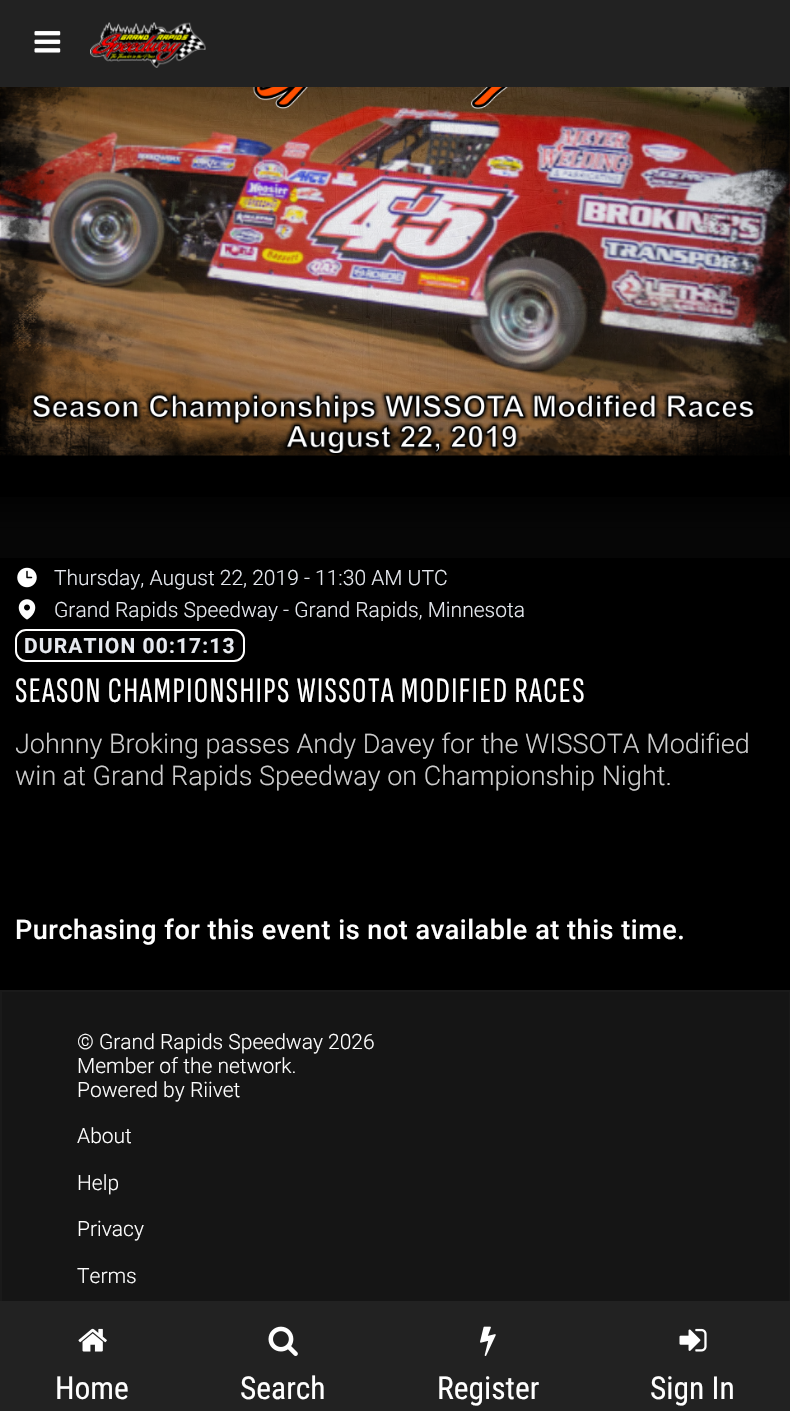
void draw(SkCanvas* c) {
SkPaint p;
p.setAntiAlias(true);
auto F=[&](const char* family, int weight, float size, bool italic = false){SkFontStyle style(weight, SkFontStyle::kNormal_Width,italic ? SkFontStyle::kItalic_Slant : SkFontStyle::kUpright_Slant);SkFont result(fontMgr->matchFamilyStyle(family, style), size);result.setSubpixel(true);return result;};
auto T=[&](const char* s, float x, float y, const SkFont& font){c->drawString(s, x, y, font, p);};
auto L=[&](const char* s, float x, float y, const SkFont& font, const SkPaint& ink, float letter, float word){std::vector<SkGlyphID> glyphs(font.countText(s, strlen(s), SkTextEncoding::kUTF8));std::vector<float> xs(glyphs.size());font.textToGlyphs(s, strlen(s), SkTextEncoding::kUTF8, glyphs);font.getXPos(glyphs, xs, x);float extra = 0;for (size_t i = 0; i < glyphs.size(); i++) {xs[i] += extra;extra += letter + word * (glyphs[i] == font.unicharToGlyph(' '));}c->drawTextBlob(SkTextBlob::MakeFromPosHGlyphs(glyphs, xs, y, font), 0, 0, ink);};
auto R=[&](float x, float y, float w, float h){c->drawRect(SkRect::MakeXYWH(x, y, w, h), p);};
auto I=[&](const char* path, float x, float y, float w, float h){auto image = SkImages::DeferredFromEncodedData(SkData::MakeFromFileName(path));c->drawImageRect(image, SkRect::MakeXYWH(x, y, w, h), SkSamplingOptions());};
c->clear(0xff000000);
p.setColor(0xff222222);
R(0,0,790,87);
I("1.png",34,31,27,22);
I("2.png",90,22,116,46);
I("3.png",0,87,790,369);
{
const SkColor colors[] = {0xff060606,0x2b0a0a0a,0x000a0a0a,0x000a0a0a,0x2b0a0a0a,0xff060606};
const float stops[] = {.04,.1,.14,.87,.9,.96};
const SkPoint ends[] = {{395,-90}, {395,558}};
p.setShader(SkGradientShader::MakeLinear(ends, colors, stops, 6, SkTileMode::kClamp));
p.setAlpha(255);
}
R(0,497,790,61);
I("4.png",17,567,20,21);
auto f1 = F("Roboto",300,21);
p.setShader(nullptr);
p.setColor(0xffe6e9ef);
T("Thursday, August 22, 2019 - 11:30 AM UTC",54,585,f1);
I("5.png",18,599,18,21);
c->save();
c->clipRect(SkRect::MakeXYWH(54,597,471,24));
T("Grand Rapids Speedway - Grand Rapids, Minnesota",54,617,f1);
c->restore();
p.setStroke(true);
p.setStrokeWidth(2);
p.setColor(0xffffffff);
c->drawRoundRect(SkRect::MakeXYWH(16,630,228,31),10,10,p);
auto f2 = F("Roboto",700,21);
p.setStroke(false);
p.setColor(0xffe6e9ef);
L("DURATION 00:17:13",24,653,f2,p,1.1,0);
auto f3 = F("Sofia Sans Extra Condensed",400,36);
p.setColor(0xffffffff);
L("SEASON CHAMPIONSHIPS WISSOTA MODIFIED RACES",15,702,f3,p,1.45,0);
auto f4 = F("Roboto",300,27);
p.setColor(0xffcccccc);
T("Johnny Broking passes Andy Davey for the WISSOTA Modified",15,753,f4);
T("win at Grand Rapids Speedway on Championship Night.",15,785,f4);
auto f5 = F("Roboto",500,27);
p.setColor(0xffffffff);
L("Purchasing for this event is not available at this time.",15,939,f5,p,.55,0);
p.setColor(0xff151515);
R(2,992,787,309);
p.setStroke(true);
p.setColor(0xff1a1a1a);
c->drawRect(SkRect::MakeXYWH(1,991,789,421),p);
p.setStroke(false);
p.setColor(0xffffffff);
T("© Grand Rapids Speedway 2026",77,1049,f1);
T("Member of the network.",77,1073,f1);
T("Powered by Riivet",77,1097,f1);
T("About",77,1143,f1);
T("Help",77,1190,f1);
T("Privacy",77,1236,f1);
T("Terms",77,1283,f1);
p.setColor(0xff222222);
R(0,1301,790,110);
I("6.png",78,1328,29,24);
auto f6 = F("Roboto Condensed",400,31.5);
p.setColor(0xffffffff);
T("Home",55,1399,f6);
I("7.png",268,1326,30,30);
T("Search",240,1399,f6);
I("8.png",480,1326,16,30);
T("Register",437,1399,f6);
I("9.png",679,1328,28,24);
T("Sign In",650,1399,f6);
}
